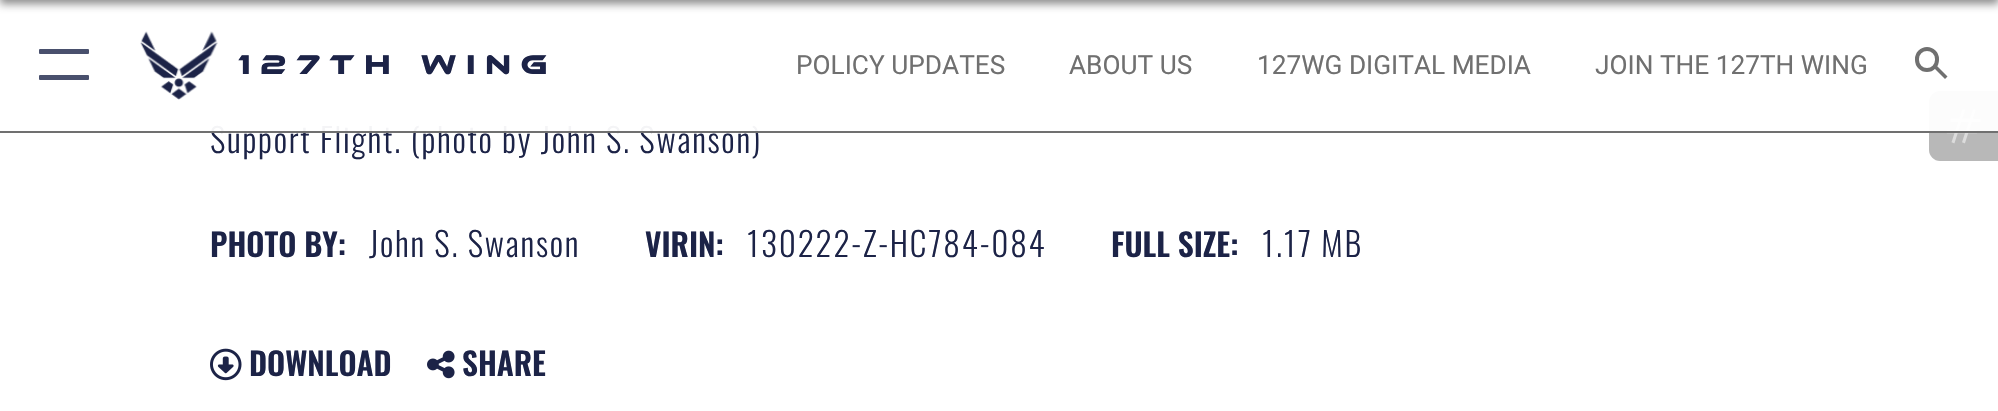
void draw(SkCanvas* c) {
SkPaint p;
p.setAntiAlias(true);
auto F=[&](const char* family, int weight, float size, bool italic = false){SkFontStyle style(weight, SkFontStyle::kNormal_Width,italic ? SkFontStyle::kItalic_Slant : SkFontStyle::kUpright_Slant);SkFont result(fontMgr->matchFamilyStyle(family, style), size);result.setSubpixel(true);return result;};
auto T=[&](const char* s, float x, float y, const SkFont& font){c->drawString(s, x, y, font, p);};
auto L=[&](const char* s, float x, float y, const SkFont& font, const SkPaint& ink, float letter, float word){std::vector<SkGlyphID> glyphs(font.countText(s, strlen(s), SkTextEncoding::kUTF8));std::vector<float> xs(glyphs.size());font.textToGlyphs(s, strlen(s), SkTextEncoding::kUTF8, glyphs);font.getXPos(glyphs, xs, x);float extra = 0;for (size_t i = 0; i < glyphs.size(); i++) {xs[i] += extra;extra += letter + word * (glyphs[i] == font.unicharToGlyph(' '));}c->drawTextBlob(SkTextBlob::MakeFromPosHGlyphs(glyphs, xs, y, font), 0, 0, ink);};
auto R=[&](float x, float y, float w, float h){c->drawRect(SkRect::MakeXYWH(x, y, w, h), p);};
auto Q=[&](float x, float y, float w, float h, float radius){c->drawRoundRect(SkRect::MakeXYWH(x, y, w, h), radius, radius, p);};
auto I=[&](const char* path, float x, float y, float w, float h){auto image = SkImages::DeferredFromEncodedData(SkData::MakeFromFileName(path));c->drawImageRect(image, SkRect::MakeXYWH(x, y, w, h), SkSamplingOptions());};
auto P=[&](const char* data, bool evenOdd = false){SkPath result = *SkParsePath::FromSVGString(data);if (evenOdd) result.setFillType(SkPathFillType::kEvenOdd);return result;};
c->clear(0xffffffff);
p.setColor(0x73000000);
p.setMaskFilter(SkMaskFilter::MakeBlur(kNormal_SkBlurStyle, 4.5));
c->drawRect(SkRect::MakeXYWH(0,-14,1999,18),p);
p.setMaskFilter(nullptr);
auto f1 = F("Oswald",300,33.25);
p.setColor(0xff1c2347);
L("Support Flight. (photo by John S. Swanson)",210,153,f1,p,1.75,0);
p.setColor(0xffb8b8b8);
c->drawPath(P("M1940 91h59v70h-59c-6 0-11-5-11-11v-48c0-6 5-11 11-11z"),p);
I("4.png",1946,109,35,35);
p.setColor(0xf2ffffff);
R(211,91,1787,40);
p.setColor(0xff707070);
R(0,131,1998,2);
p.setColor(0xff49506d);
Q(39,49,50,5,1);
Q(39,75,50,5,1);
I("1.png",140,31,78,69);
auto f2 = F("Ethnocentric",400,28);
p.setColor(0xff1c2347);
L("127th Wing",238,74,f2,p,9.75,0);
auto f3 = F("Roboto",400,26.25);
p.setColor(0xff707070);
T("POLICY UPDATES",796,74,f3);
T("ABOUT US",1069,74,f3);
T("127WG DIGITAL MEDIA",1257,74,f3);
T("JOIN THE 127TH WING",1595,74,f3);
p.setStroke(true);
p.setStrokeWidth(4);
c->drawRoundRect(SkRect::MakeXYWH(1917,49,20,21),10,10,p);
p.setStroke(false);
c->drawPath(P("M1935 64l12.5 12.5l-2.5 2.5l-12.5-12.5z"),p);
auto f4 = F("Oswald",600,31.5);
p.setColor(0xff1c2347);
T("PHOTO BY:",210,257,f4);
L("John S. Swanson",369,257,f1,p,1.75,0);
T("VIRIN:",645,257,f4);
L("130222-Z-HC784-084",747,257,f1,p,1.75,0);
T("FULL SIZE:",1111,257,f4);
L("1.17 MB",1262,257,f1,p,1.75,0);
I("2.png",210,348,32,33);
T("DOWNLOAD",249,376,f4);
I("3.png",427,350,28,29);
T("SHARE",462,376,f4);
}
